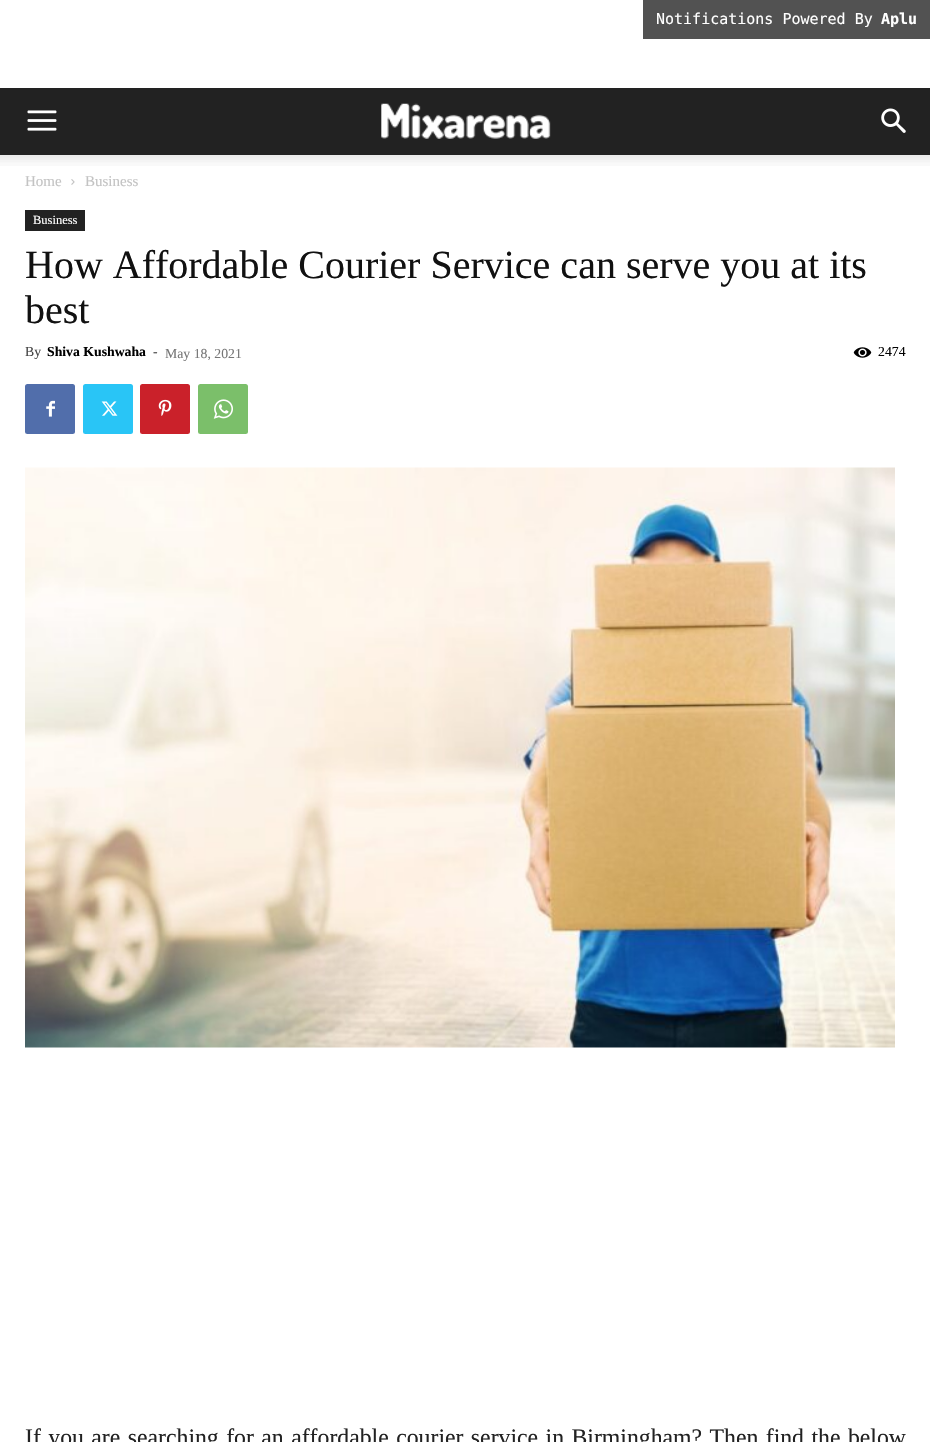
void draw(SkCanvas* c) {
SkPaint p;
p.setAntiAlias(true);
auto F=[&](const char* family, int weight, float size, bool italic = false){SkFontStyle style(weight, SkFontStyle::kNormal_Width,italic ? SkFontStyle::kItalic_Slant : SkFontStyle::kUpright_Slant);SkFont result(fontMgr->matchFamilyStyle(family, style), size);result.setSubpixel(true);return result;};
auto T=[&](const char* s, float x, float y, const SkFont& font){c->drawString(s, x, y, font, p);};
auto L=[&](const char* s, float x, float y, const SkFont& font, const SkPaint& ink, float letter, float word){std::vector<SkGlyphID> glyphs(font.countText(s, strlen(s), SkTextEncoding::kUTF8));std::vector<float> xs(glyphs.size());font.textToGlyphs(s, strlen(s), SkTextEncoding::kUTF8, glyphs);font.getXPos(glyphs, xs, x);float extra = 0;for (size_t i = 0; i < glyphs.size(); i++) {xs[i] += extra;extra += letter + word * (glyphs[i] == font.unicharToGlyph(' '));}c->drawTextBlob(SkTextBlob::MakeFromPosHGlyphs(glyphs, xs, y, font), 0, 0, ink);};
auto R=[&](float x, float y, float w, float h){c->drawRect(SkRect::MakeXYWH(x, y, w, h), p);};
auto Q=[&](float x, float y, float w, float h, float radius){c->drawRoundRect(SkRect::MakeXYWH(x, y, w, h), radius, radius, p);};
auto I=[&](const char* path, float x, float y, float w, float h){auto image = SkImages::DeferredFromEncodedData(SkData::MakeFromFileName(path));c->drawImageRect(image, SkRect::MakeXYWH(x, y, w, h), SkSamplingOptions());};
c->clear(0xffffffff);
p.setColor(0xff525252);
R(643,0,287,39);
auto f1 = F("DejaVu Sans Mono",400,15);
p.setColor(0xffffffff);
T("Notifications Powered By",656,24,f1);
auto f2 = F("DejaVu Sans Mono",700,15);
T("Aplu",881,24,f2);
p.setColor(0xff222222);
R(0,88,930,67);
I("1.png",27,110,30,21);
I("2.png",381,103,170,36);
I("3.png",881,108,25,25);
I("4.png",0,155,930,11);
auto f3 = F("Liberation Serif",400,15);
p.setColor(0xffc3c3c3);
T("Home",25,186,f3);
I("5.png",71,179,4,6);
T("Business",85,186,f3);
p.setColor(0xff222222);
R(25,210,60,21);
auto f4 = F("Liberation Serif",400,12.5);
p.setColor(0xffffffff);
T("Business",33,224,f4);
auto f5 = F("Liberation Serif",400,40);
p.setColor(0xff111111);
T("How Affordable Courier Service can serve you at its",25,278,f5);
T("best",25,323,f5);
auto f6 = F("Liberation Serif",400,13.75);
p.setColor(0xff444444);
T("By",25,356,f6);
auto f7 = F("Liberation Serif",700,13.75);
p.setColor(0xff000000);
T("Shiva Kushwaha",47,356,f7);
p.setColor(0xff444444);
T("-",153,356,f6);
p.setColor(0xff767676);
T("May 18, 2021",165,358,f6);
I("6.png",853,347,19,11);
p.setColor(0xff000000);
T("2474",878,356,f6);
p.setColor(0xff516eab);
Q(25,384,50,50,2.5);
I("7.png",46,400,9,17);
p.setColor(0xff29c5f6);
Q(83,384,50,50,2.5);
I("8.png",101,401,17,15);
p.setColor(0xffca212a);
Q(140,384,50,50,2.5);
I("9.png",158,399,14,17);
p.setColor(0xff7bbf6a);
Q(198,384,50,50,2.5);
I("10.png",213,399,20,20);
I("11.png",25,467,870,581);
auto f8 = F("Liberation Serif",400,23.75);
p.setColor(0xff222222);
L("If you are searching for an affordable courier service in Birmingham? Then find the below",25,1445,f8,p,0,1.5);
}
